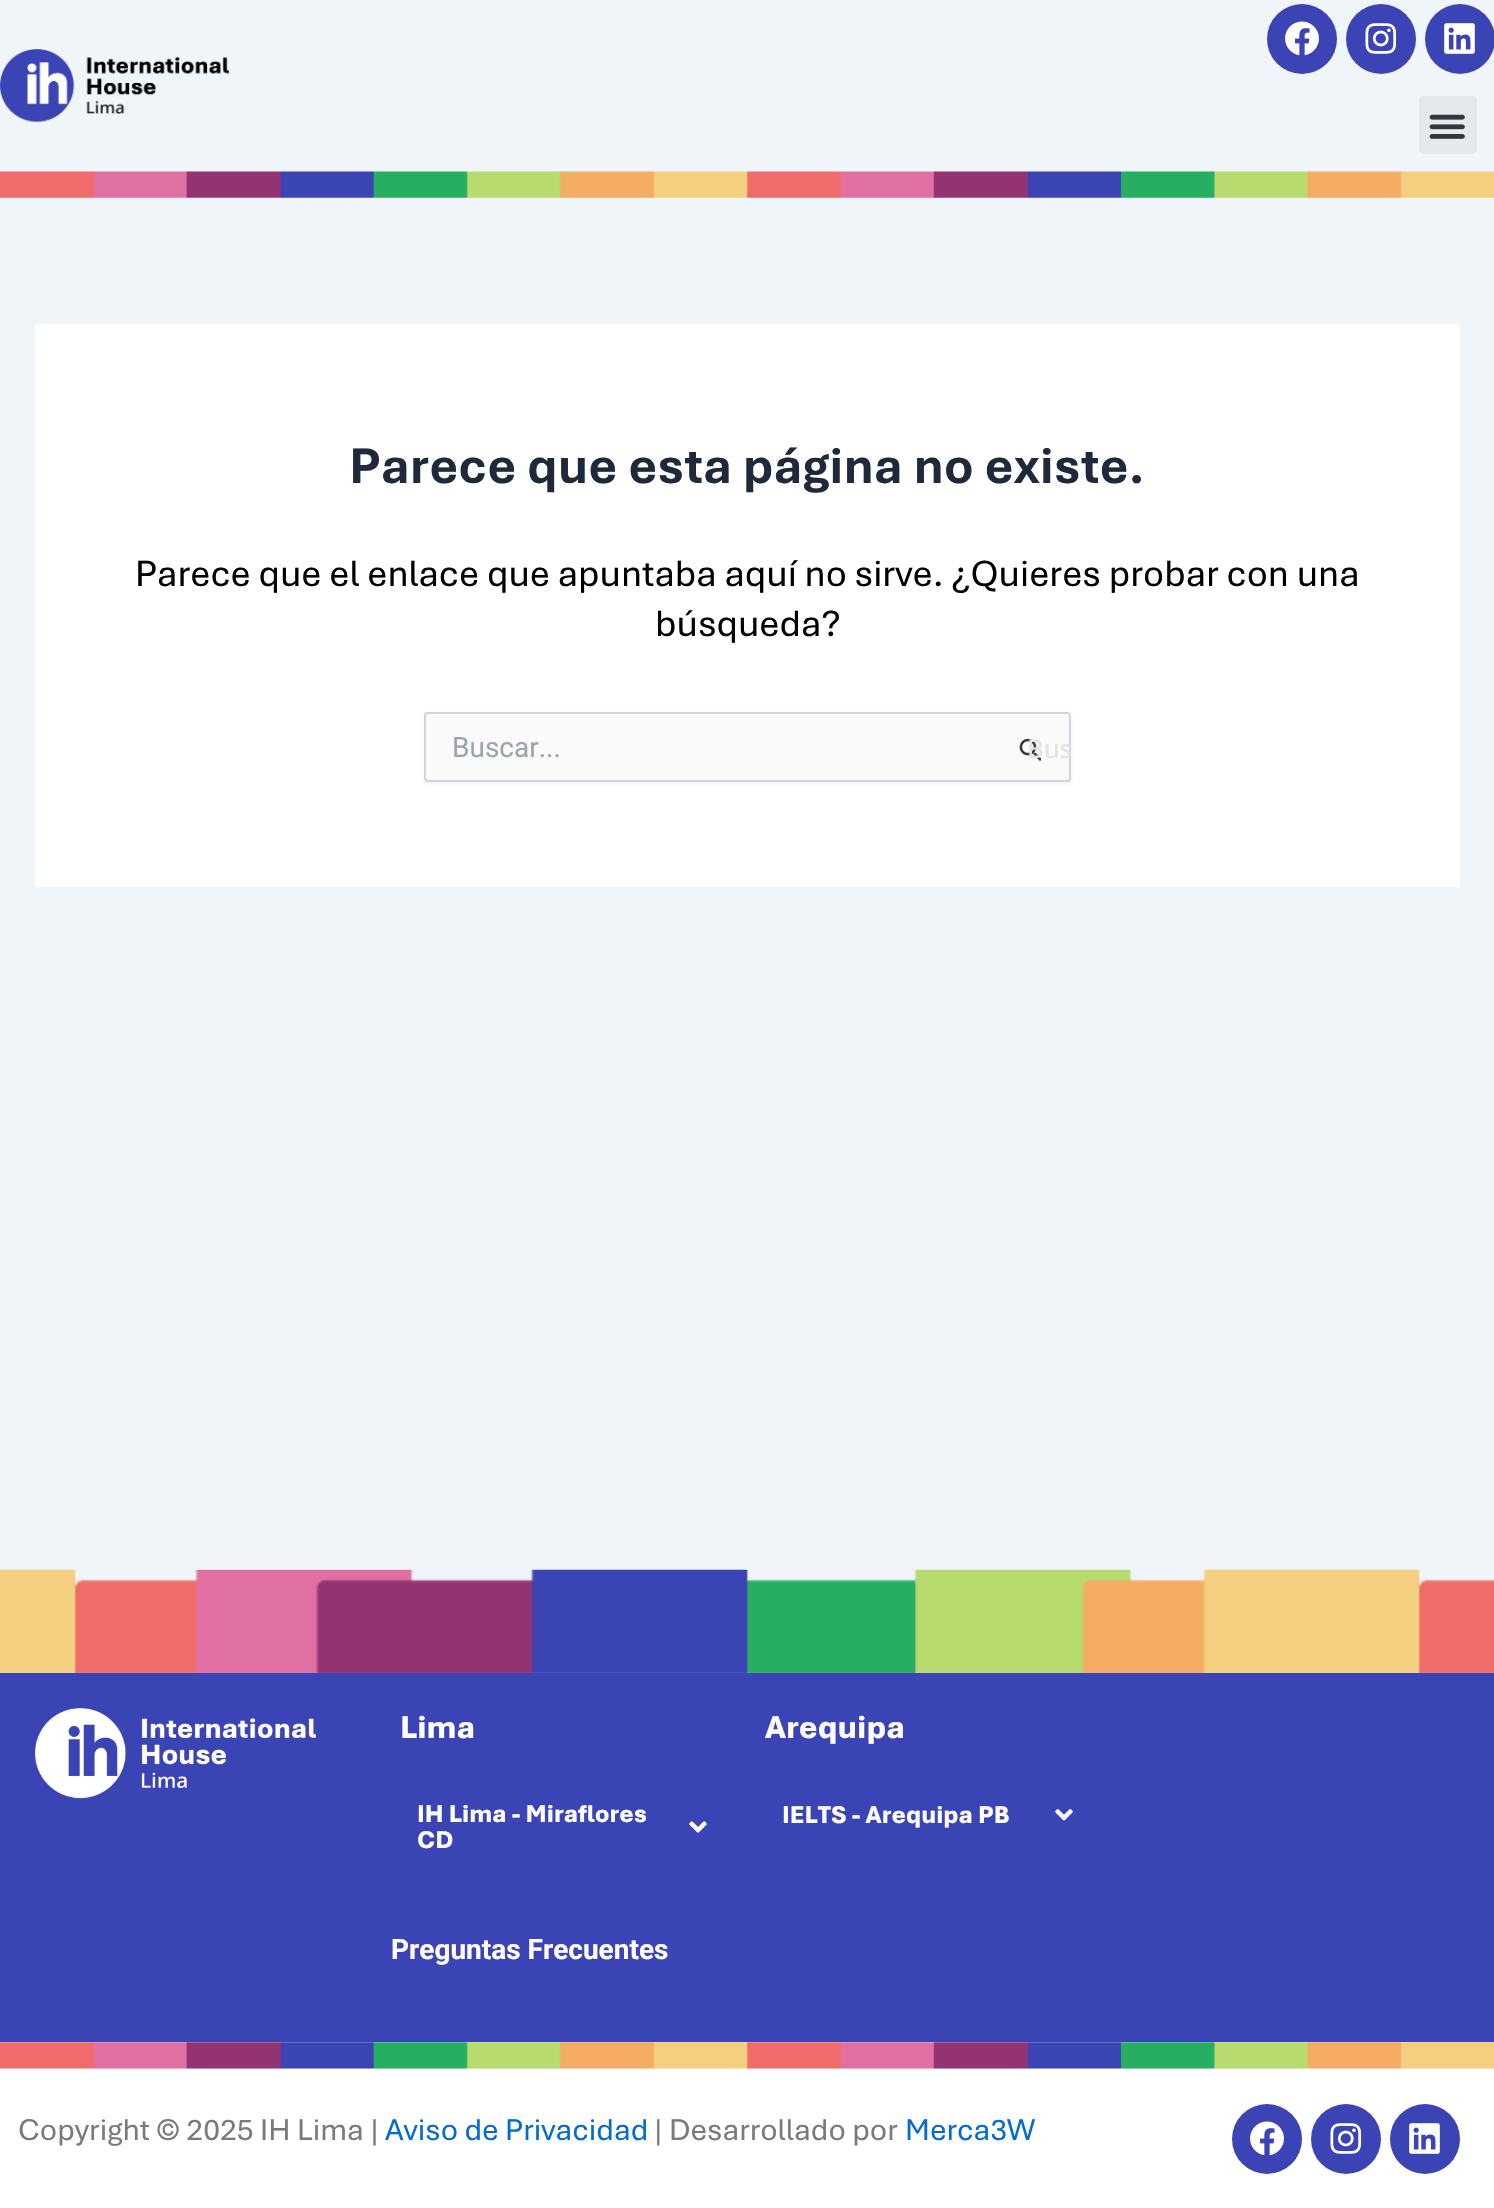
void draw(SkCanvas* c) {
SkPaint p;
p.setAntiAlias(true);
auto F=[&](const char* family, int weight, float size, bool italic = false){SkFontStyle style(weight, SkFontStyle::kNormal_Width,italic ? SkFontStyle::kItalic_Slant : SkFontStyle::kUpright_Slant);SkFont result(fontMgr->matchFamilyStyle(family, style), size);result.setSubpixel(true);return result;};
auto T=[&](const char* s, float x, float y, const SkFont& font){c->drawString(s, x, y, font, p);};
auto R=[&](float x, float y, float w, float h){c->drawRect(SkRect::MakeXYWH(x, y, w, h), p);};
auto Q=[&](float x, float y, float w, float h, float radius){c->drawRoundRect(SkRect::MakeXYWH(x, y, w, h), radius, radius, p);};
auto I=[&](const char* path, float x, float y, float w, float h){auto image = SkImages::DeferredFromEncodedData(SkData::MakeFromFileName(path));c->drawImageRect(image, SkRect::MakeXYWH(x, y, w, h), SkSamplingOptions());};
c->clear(0xfff0f5fa);
I("1.png",0,49,230,74);
p.setColor(0xff3b43b5);
c->drawCircle(1302,39,35,p);
I("2.png",1285,21,34,35);
c->drawCircle(1381,39,35,p);
I("3.png",1365,23,32,31);
p.setColor(0xff3b44b5);
c->drawCircle(1460,39,35,p);
I("4.png",1444,23,31,31);
p.setColor(0xffe4e9ee);
Q(1419,96,58,58,5);
I("5.png",1429,114,36,25);
I("6.png",0,171,1494,27);
p.setColor(0xffffffff);
R(35,324,1425,563);
auto f1 = F("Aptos",700,52.5);
p.setColor(0xff1e293b);
T("Parece que esta página no existe.",349,483,f1);
auto f2 = F("Aptos",400,38.3);
p.setColor(0xff000000);
T("Parece que el enlace que apuntaba aquí no sirve. ¿Quieres probar con una",135,586,f2);
T("búsqueda?",655,636,f2);
p.setColor(0x0d000000);
p.setMaskFilter(SkMaskFilter::MakeBlur(kNormal_SkBlurStyle, 2));
c->drawRoundRect(SkRect::MakeXYWH(424,714,647,70),4,4,p);
p.setMaskFilter(nullptr);
p.setColor(0xfffafafa);
c->drawRoundRect(SkRect::MakeXYWH(425,713,645,68),3,3,p);
p.setStroke(true);
p.setStrokeWidth(2);
p.setColor(0xffd1d5db);
c->drawRoundRect(SkRect::MakeXYWH(425,713,645,68),3,3,p);
auto f3 = F("Roboto",400,28);
p.setStroke(false);
p.setColor(0xff9ca3af);
T("Buscar...",452,757,f3);
I("7.png",1019,738,22,23);
auto f4 = F("Open Sans",500,25.5);
p.setColor(0xffe3e3e3);
T("Bus",1027,758,f4);
I("8.png",0,1569,1494,104);
p.setColor(0xff3b44b5);
R(0,1673,1494,369);
I("9.png",35,1708,281,91);
auto f5 = F("Aptos",800,33.25);
p.setColor(0xffffffff);
T("Lima",400,1738,f5);
auto f6 = F("Aptos",800,25.5);
T("IH Lima - Miraflores",417,1822,f6);
T("CD",417,1848,f6);
I("10.png",689,1821,18,12);
T("Arequipa",765,1738,f5);
T("IELTS - Arequipa PB",782,1823,f6);
I("11.png",1055,1809,18,12);
auto f7 = F("Roboto",700,28);
T("Preguntas Frecuentes",391,1959,f7);
I("12.png",0,2042,1494,27);
R(0,2069,1494,139);
auto f8 = F("Aptos",400,31.5);
p.setColor(0xff7a7a7a);
T("Copyright © 2025 IH Lima |",18,2140,f8);
p.setColor(0xff046bd2);
T("Aviso de Privacidad",385,2140,f8);
p.setColor(0xff7a7a7a);
T("| Desarrollado por",654,2140,f8);
p.setColor(0xff046bd2);
T("Merca3W",905,2140,f8);
p.setColor(0xff3b43b5);
c->drawCircle(1267,2139,35,p);
I("2.png",1250,2121,34,35);
c->drawCircle(1346,2139,35,p);
I("3.png",1330,2123,32,31);
p.setColor(0xff3b44b5);
c->drawCircle(1425,2139,35,p);
I("4.png",1409,2123,31,31);
}
